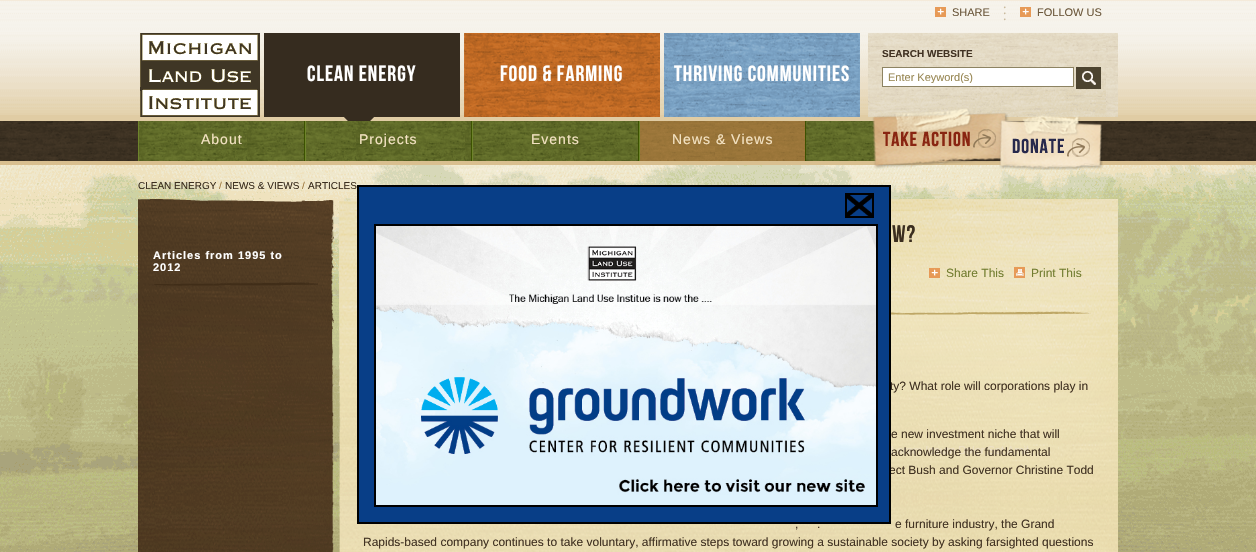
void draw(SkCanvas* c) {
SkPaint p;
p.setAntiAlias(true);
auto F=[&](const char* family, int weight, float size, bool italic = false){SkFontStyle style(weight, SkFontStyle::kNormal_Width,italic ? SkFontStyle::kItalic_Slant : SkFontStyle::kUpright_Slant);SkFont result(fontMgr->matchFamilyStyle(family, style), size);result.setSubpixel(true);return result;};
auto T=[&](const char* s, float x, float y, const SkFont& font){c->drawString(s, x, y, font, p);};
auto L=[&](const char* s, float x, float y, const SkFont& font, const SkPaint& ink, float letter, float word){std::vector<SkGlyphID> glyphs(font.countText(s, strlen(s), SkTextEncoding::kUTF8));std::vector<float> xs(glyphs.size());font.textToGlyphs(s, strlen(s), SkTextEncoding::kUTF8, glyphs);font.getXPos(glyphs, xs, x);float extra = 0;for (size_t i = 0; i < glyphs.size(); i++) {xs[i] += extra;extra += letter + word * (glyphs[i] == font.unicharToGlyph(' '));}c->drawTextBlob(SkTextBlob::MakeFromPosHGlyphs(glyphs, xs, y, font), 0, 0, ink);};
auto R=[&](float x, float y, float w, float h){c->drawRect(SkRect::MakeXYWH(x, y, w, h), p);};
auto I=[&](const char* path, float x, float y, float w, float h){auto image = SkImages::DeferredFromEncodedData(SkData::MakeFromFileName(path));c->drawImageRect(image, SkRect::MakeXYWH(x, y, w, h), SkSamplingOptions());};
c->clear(0xffffffff);
I("1.png",0,165,1256,387);
p.setColor(0xffe0cca4);
R(0,115,1256,6);
I("2.png",0,0,1256,115);
I("3.png",1003,6,3,15);
I("4.png",935,7,11,10);
auto f1 = F("Liberation Sans",400,11);
p.setColor(0xff6c583c);
T("SHARE",952,16,f1);
I("4.png",1020,7,11,10);
T("FOLLOW US",1037,16,f1);
I("5.png",140,33,120,84);
I("6.png",264,33,196,88);
auto f2 = F("Bebas Neue",400,22);
p.setColor(0xffffffff);
L("CLEAN ENERGY",307,81,f2,p,1,0);
I("7.png",464,33,196,84);
L("FOOD & FARMING",500,81,f2,p,1,0);
I("8.png",664,33,196,84);
L("THRIVING COMMUNITIES",674,81,f2,p,1,0);
I("9.png",868,33,250,84);
auto f3 = F("Liberation Sans",700,10);
p.setColor(0xff413222);
T("SEARCH WEBSITE",882,57,f3);
p.setColor(0xffffffff);
c->drawRect(SkRect::MakeXYWH(882.5,67.5,191,19),p);
p.setStroke(true);
p.setStrokeWidth(1);
p.setColor(0xff8d8362);
c->drawRect(SkRect::MakeXYWH(882.5,67.5,191,19),p);
c->save();
c->clipRect(SkRect::MakeXYWH(888,71,180,12));
p.setStroke(false);
p.setColor(0xff988753);
T("Enter Keyword(s)",888,81,f1);
c->restore();
I("10.png",1076,67,25,22);
I("11.png",0,121,1256,40);
p.setColor(0xffd9bf8f);
R(0,161,1256,4);
I("12.png",139,121,799,40);
p.setColor(0xff3c5200);
R(304,121,1,40);
p.setColor(0xff6e842c);
R(138,121,1,40);
auto f4 = F("Liberation Sans",400,14);
p.setColor(0xfff4e3c3);
L("About",201,144,f4,p,1,0);
p.setColor(0xff3c5200);
R(471,121,1,40);
p.setColor(0xff6e842c);
R(305,121,1,40);
p.setColor(0xfff4e3c3);
L("Projects",359,144,f4,p,1,0);
p.setColor(0xff3c5200);
R(638,121,1,40);
p.setColor(0xff6e842c);
R(472,121,1,40);
p.setColor(0xfff4e3c3);
L("Events",531,144,f4,p,1,0);
p.setColor(0xff3c5200);
R(805,121,1,40);
p.setColor(0xff6e842c);
R(639,121,1,40);
I("13.png",640,121,165,40);
p.setColor(0xfff4e3c3);
L("News & Views",672,144,f4,p,1,0);
I("14.png",872,108,137,61);
I("15.png",999,115,104,55);
auto f5 = F("Liberation Sans",400,10);
p.setColor(0xff3b2e1f);
T("CLEAN ENERGY",138,189,f5);
p.setColor(0xff9d773b);
T("/",219,189,f5);
p.setColor(0xff3b2e1f);
T("NEWS & VIEWS",225,189,f5);
p.setColor(0xff9d773b);
T("/",302,189,f5);
p.setColor(0xff3b2e1f);
T("ARTICLES",308,189,f5);
I("16.png",138,199,980,12);
I("17.png",138,211,980,341);
I("18.png",154,282,164,4);
auto f6 = F("Liberation Sans",700,11);
p.setColor(0xffffffff);
L("Articles from 1995 to",153,259,f6,p,1,0);
L("2012",153,271,f6,p,1,0);
auto f7 = F("Bebas Neue",400,24);
p.setColor(0xff3b2e1f);
L("w?",892,242,f7,p,1,0);
I("4.png",929,268,11,10);
auto f8 = F("Liberation Sans",400,12);
p.setColor(0xff727d30);
T("Share This",946,277,f8);
I("19.png",1014,267,11,11);
T("Print This",1031,277,f8);
I("20.png",891,311,200,4);
p.setColor(0xff413222);
T("ty? What role will corporations play in",890,390,f8);
T("e new investment niche that will",891,438,f8);
T("acknowledge the fundamental",891,456,f8);
T("ect Bush and Governor Christine Todd",889,474,f8);
T(",",795,528,f8);
T(".",817,528,f8);
T("e furniture industry, the Grand",895,528,f8);
T("Rapids-based company continues to take voluntary, affirmative steps toward growing a sustainable society by asking farsighted questions",363,546,f8);
p.setColor(0xff083e87);
c->drawRect(SkRect::MakeXYWH(358,186,532,337),p);
p.setStroke(true);
p.setStrokeWidth(2);
p.setColor(0xff000000);
c->drawRect(SkRect::MakeXYWH(358,186,532,337),p);
c->drawRect(SkRect::MakeXYWH(846,194,27,23),p);
I("21.png",847,195,25,21);
c->drawRect(SkRect::MakeXYWH(375,225,502,281),p);
I("22.png",376,226,500,279);
}
